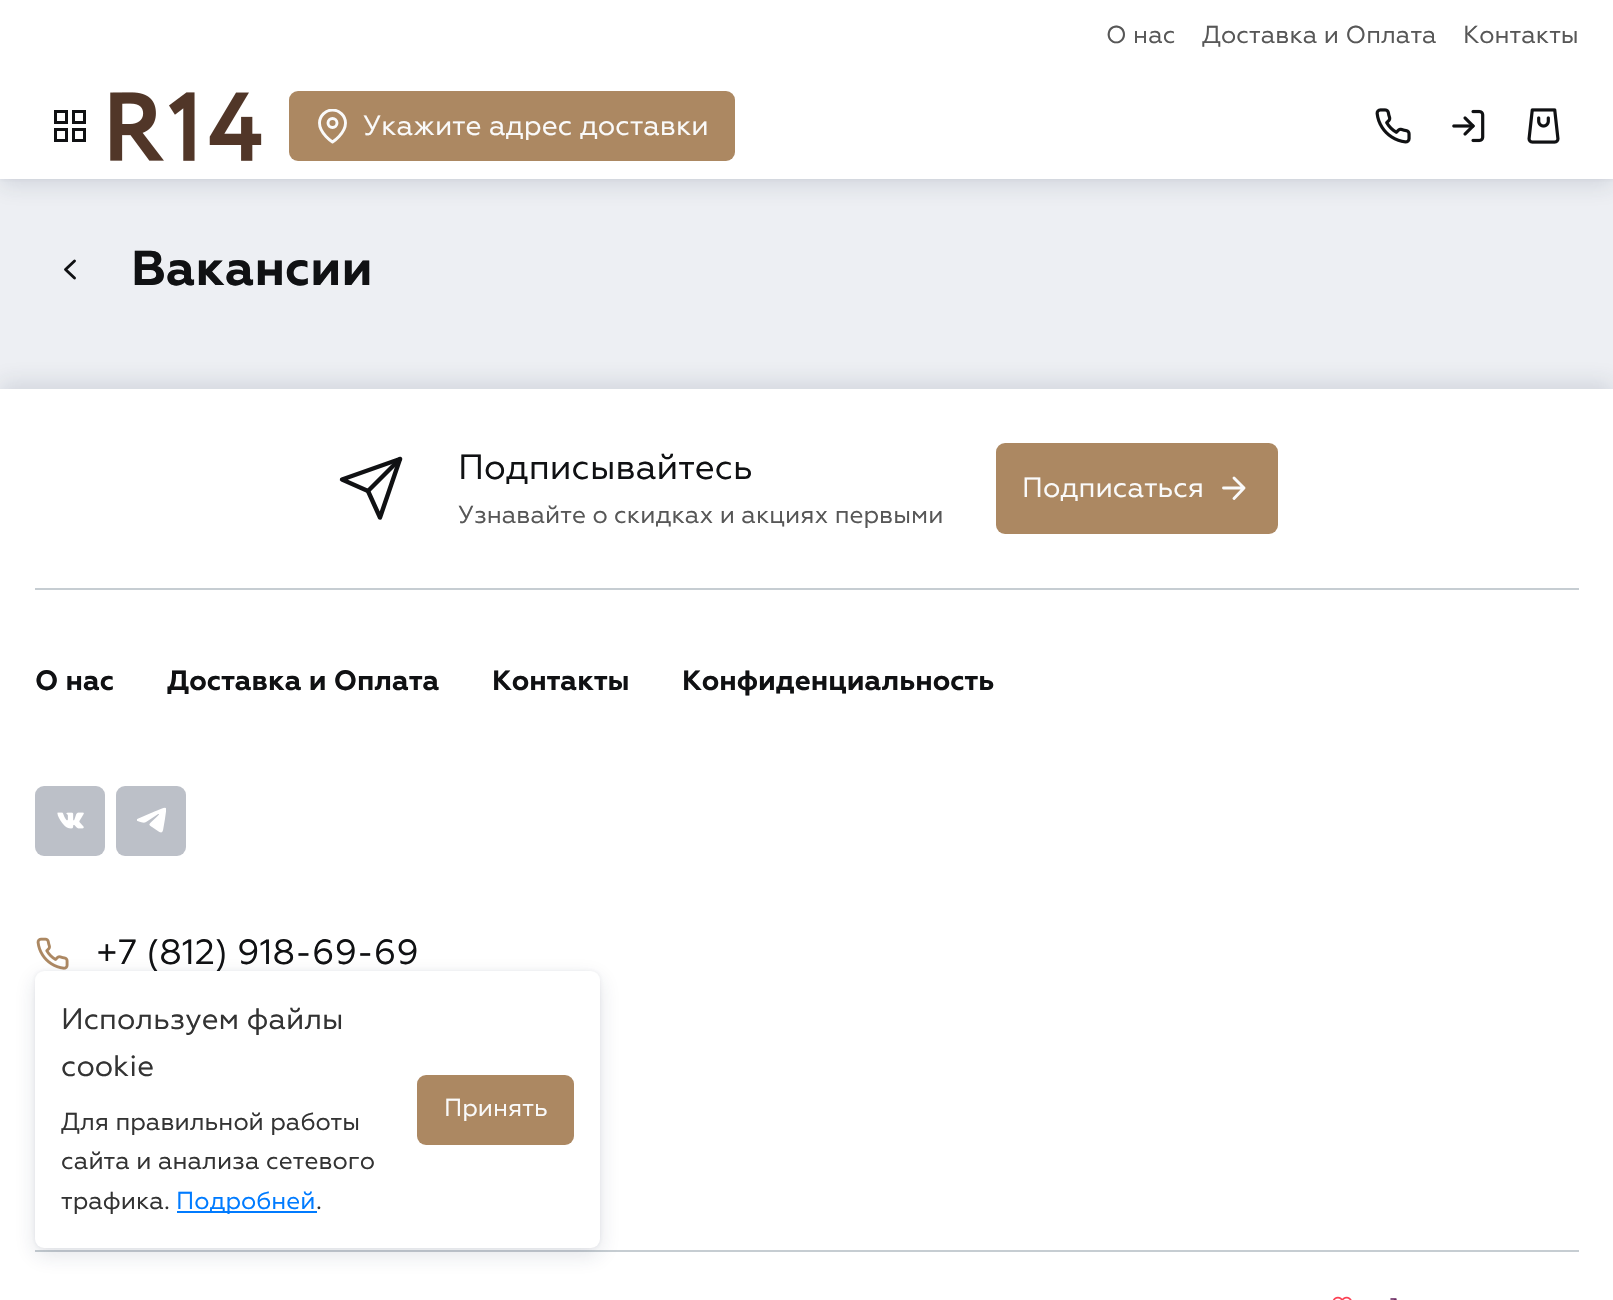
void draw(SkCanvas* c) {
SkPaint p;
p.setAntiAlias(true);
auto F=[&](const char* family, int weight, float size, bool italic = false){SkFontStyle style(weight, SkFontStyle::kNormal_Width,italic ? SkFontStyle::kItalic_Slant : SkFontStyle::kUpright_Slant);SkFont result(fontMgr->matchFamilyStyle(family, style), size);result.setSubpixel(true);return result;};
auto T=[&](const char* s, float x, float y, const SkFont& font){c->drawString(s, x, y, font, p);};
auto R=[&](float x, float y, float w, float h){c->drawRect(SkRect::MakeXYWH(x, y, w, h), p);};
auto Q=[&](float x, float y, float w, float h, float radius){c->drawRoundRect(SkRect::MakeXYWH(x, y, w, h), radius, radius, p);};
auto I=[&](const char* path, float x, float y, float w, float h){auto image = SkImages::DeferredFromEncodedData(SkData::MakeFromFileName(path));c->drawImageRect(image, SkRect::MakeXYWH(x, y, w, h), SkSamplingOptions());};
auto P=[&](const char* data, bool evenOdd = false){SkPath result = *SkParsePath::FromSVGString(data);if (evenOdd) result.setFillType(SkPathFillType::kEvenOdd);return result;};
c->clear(0xffedeff3);
p.setColor(0x21202c4b);
p.setMaskFilter(SkMaskFilter::MakeBlur(kNormal_SkBlurStyle, 10.5));
c->drawRect(SkRect::MakeXYWH(0,7,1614,179),p);
p.setMaskFilter(nullptr);
p.setColor(0x14202c4b);
p.setMaskFilter(SkMaskFilter::MakeBlur(kNormal_SkBlurStyle, 2));
c->drawRect(SkRect::MakeXYWH(0,0,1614,179),p);
p.setMaskFilter(nullptr);
p.setColor(0xffffffff);
R(0,0,1613,179);
auto f1 = F("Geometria",400,24.5);
p.setColor(0xff575757);
T("О нас",1106,43,f1);
T("Доставка и Оплата",1202,43,f1);
T("Контакты",1463,43,f1);
p.setStroke(true);
p.setStrokeWidth(3);
p.setColor(0xff101113);
c->drawRect(SkRect::MakeXYWH(55.5,111.5,11,11),p);
c->drawRect(SkRect::MakeXYWH(73.5,111.5,11,11),p);
c->drawRect(SkRect::MakeXYWH(73.5,129.5,11,11),p);
c->drawRect(SkRect::MakeXYWH(55.5,129.5,11,11),p);
I("1.png",110,92,152,69);
p.setStroke(false);
p.setColor(0xffac8862);
Q(289,91,446,70,9);
c->save();
c->clipRect(SkRect::MakeXYWH(315,109,35,35));
p.setStroke(true);
p.setStrokeWidth(2.9);
p.setStrokeCap(SkPaint::kRound_Cap);
p.setStrokeJoin(SkPaint::kRound_Join);
p.setColor(0xfffafafa);
c->drawPath(P("M345.5 123c0 10.5-13 19-13 19c0 0-13-8.5-13-19c0-7 6-13 13-13c7 0 13 6 13 13z"),p);
c->restore();
p.setStrokeCap(SkPaint::kButt_Cap);
p.setStrokeJoin(SkPaint::kMiter_Join);
c->drawCircle(332.5,123,4.5,p);
c->save();
c->clipRect(SkRect::MakeXYWH(362,112,347,28));
auto f2 = F("Geometria",400,28);
p.setStroke(false);
T("Укажите адрес доставки",363,135,f2);
c->restore();
I("2.png",1375,108,36,36);
I("3.png",1452,109,33,34);
I("4.png",1527,108,33,36);
p.setStroke(true);
p.setStrokeCap(SkPaint::kRound_Cap);
p.setStrokeJoin(SkPaint::kRound_Join);
p.setColor(0xff101113);
c->drawPath(P("M74.5 278l-9-8.5l9-8.5"),p);
auto f3 = F("Geometria",700,49);
p.setStroke(false);
T("Вакансии",131,285,f3);
p.setColor(0x21202c4b);
p.setMaskFilter(SkMaskFilter::MakeBlur(kNormal_SkBlurStyle, 10.5));
c->drawRect(SkRect::MakeXYWH(0,382,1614,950),p);
p.setMaskFilter(nullptr);
p.setColor(0xffffffff);
R(0,389,1613,911);
p.setColor(0xffc6cdd2);
R(35,588,1544,2);
p.setStroke(true);
p.setStrokeWidth(4.4);
p.setColor(0xff101113);
c->drawPath(P("M400 459l-32 32"),p);
c->drawPath(P("M400 459l-20 58.5l-12-26.5l-26-11.5z"),p);
auto f4 = F("Geometria",400,35);
p.setStroke(false);
T("Подписывайтесь",458,479,f4);
p.setColor(0xff575757);
T("Узнавайте о скидках и акциях первыми",458,523,f1);
p.setColor(0xffac8862);
Q(996,443,282,91,9);
p.setColor(0xfffafafa);
T("Подписаться",1022,497,f2);
p.setStroke(true);
p.setStrokeWidth(2.9);
c->drawPath(P("M1223.5 488h20.5m-10-10l10 10l-10 10.5"),p);
p.setStroke(false);
p.setColor(0xffc6cdd2);
R(35,1250,1544,2);
auto f5 = F("Geometria",700,28);
p.setColor(0xff101113);
T("О нас",35,690,f5);
T("Доставка и Оплата",167,690,f5);
T("Контакты",492,690,f5);
T("Конфиденциальность",682,690,f5);
p.setColor(0xffbcc0c8);
Q(35,786,70,70,9);
I("5.png",57,812,27,17);
Q(116,786,70,70,9);
I("6.png",137,807,29,26);
I("7.png",36,937,33,33);
p.setColor(0xff101113);
T("+7 (812) 918-69-69",96,964,f4);
I("8.png",1332,1296,20,4);
I("9.png",1390,1298,7,2);
p.setColor(0x21202c4b);
p.setMaskFilter(SkMaskFilter::MakeBlur(kNormal_SkBlurStyle, 10.5));
c->drawRoundRect(SkRect::MakeXYWH(35,978,565,277),9,9,p);
p.setMaskFilter(nullptr);
p.setColor(0x14202c4b);
p.setMaskFilter(SkMaskFilter::MakeBlur(kNormal_SkBlurStyle, 2));
c->drawRoundRect(SkRect::MakeXYWH(35,971,565,277),9,9,p);
p.setMaskFilter(nullptr);
p.setColor(0xffffffff);
Q(35,971,565,277,9);
auto f6 = F("Geometria",400,29.5);
p.setColor(0xff333333);
T("Используем файлы",61,1029,f6);
T("cookie",61,1076,f6);
T("Для правильной работы",61,1130,f1);
T("сайта и анализа сетевого",61,1169,f1);
T("трафика.",61,1209,f1);
p.setColor(0xff007bff);
R(177,1211,140,2);
T("Подробней",176,1209,f1);
p.setColor(0xff333333);
T(".",316,1209,f1);
p.setColor(0xffac8862);
Q(417,1075,157,70,9);
p.setColor(0xfffafafa);
T("Принять",444,1116,f1);
}
